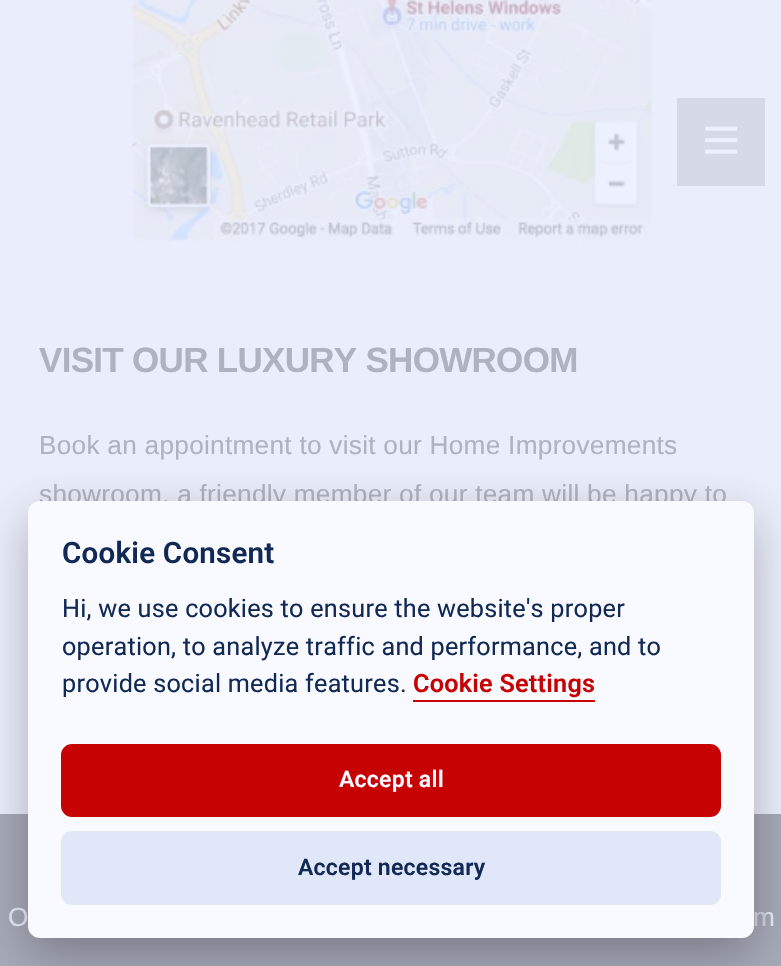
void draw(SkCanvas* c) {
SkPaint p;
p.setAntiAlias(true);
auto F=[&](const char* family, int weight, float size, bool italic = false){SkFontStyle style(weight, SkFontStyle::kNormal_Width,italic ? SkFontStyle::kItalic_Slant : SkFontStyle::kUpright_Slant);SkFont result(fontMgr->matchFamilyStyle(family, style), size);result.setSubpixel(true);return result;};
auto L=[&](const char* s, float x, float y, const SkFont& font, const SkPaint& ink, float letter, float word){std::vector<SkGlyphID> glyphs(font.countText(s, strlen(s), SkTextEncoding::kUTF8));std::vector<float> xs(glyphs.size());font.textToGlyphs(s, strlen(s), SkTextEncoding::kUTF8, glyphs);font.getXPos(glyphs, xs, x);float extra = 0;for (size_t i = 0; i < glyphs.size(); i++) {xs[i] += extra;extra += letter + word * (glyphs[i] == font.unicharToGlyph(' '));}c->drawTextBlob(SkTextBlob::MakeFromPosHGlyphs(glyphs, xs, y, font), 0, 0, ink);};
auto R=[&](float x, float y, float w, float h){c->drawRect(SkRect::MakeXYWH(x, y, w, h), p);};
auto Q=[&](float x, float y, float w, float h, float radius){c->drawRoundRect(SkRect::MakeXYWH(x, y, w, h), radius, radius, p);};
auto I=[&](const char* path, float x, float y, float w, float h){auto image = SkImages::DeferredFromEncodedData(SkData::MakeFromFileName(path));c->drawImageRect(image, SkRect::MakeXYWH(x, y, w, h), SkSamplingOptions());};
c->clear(0xffa6a9b8);
p.setColor(0xffeaeefc);
R(0,0,781,814);
p.setColor(0xffd6d9e8);
R(677,98,88,88);
I("1.png",705,126,33,28);
I("2.png",129,0,526,249);
auto f1 = F("Liberation Sans",700,35);
p.setColor(0xffafb3c1);
L("VISIT OUR LUXURY SHOWROOM",39,372,f1,p,-.7,0);
auto f2 = F("Liberation Sans",400,26.25);
L("Book an appointment to visit our Home Improvements",39,454,f2,p,.25,0);
L("showroom, a friendly member of our team will be happy to",39,503,f2,p,.25,0);
p.setColor(0xffe6eaf8);
L("O",8,926,f2,p,.25,0);
L("m",753,926,f2,p,.25,0);
p.setColor(0x4da6a9b8);
R(754,912,11,14);
p.setColor(0x47020203);
p.setMaskFilter(SkMaskFilter::MakeBlur(kNormal_SkBlurStyle, 24.5));
c->drawRoundRect(SkRect::MakeXYWH(28,516,726,438),12,12,p);
p.setMaskFilter(nullptr);
p.setColor(0xfff9faff);
Q(28,501,726,437,12);
auto f3 = F("Roboto",600,29.5);
p.setColor(0xff112954);
L("Cookie Consent",62,563,f3,p,.25,0);
auto f4 = F("Roboto",400,25.2);
L("Hi, we use cookies to ensure the website's proper",62,617,f4,p,.25,0);
L("operation, to analyze traffic and performance, and to",62,655,f4,p,.25,0);
L("provide social media features.",62,692,f4,p,.25,0);
auto f5 = F("Roboto",600,25.2);
p.setColor(0xffc60203);
L("Cookie Settings",413,692,f5,p,.25,0);
R(413,700,182,2);
Q(61,744,660,73,11);
auto f6 = F("Roboto",600,23);
p.setColor(0xfff9faff);
L("Accept all",339,787,f6,p,.25,0);
p.setColor(0xffdfe7f9);
Q(61,831,660,74,11);
p.setColor(0xff112954);
L("Accept necessary",298,875,f6,p,.25,0);
}
